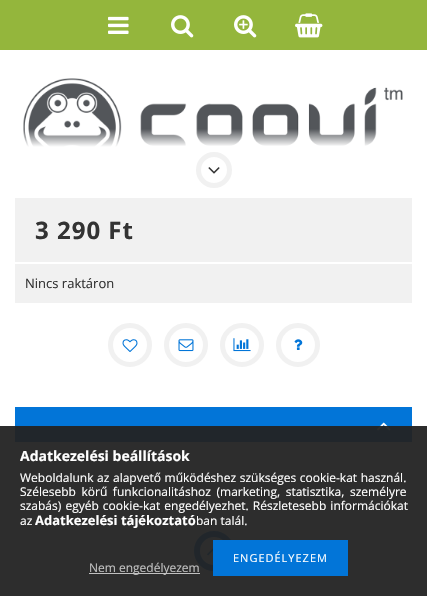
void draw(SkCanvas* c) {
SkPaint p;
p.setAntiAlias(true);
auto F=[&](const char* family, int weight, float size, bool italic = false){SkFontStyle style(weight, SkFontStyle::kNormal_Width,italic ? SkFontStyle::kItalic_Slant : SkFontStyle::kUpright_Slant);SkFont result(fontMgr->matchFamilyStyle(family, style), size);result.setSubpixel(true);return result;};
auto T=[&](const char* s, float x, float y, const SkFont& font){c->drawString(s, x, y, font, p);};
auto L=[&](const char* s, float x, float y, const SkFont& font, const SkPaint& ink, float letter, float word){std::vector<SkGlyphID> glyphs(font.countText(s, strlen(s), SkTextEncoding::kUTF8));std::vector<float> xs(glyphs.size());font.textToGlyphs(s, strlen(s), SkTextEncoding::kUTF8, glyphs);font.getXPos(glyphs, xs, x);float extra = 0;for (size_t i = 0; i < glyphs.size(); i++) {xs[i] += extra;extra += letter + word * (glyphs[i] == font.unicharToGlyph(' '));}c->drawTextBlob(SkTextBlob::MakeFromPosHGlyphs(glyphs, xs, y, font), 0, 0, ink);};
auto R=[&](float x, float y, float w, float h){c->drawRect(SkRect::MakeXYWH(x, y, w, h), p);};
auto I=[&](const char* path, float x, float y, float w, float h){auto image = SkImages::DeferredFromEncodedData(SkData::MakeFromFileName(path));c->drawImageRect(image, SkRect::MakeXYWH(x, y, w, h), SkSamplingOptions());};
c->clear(0xffffffff);
p.setColor(0xff94b63c);
R(0,0,427,50);
I("1.png",108,16,21,18);
I("2.png",171,15,23,23);
I("3.png",234,15,23,23);
I("4.png",295,13,28,25);
I("5.png",23,78,380,69);
{
const SkColor colors[] = {0x00ffffff,0xffffffff};
const float stops[] = {0,1};
const SkPoint ends[] = {{214,129}, {214,147}};
p.setShader(SkGradientShader::MakeLinear(ends, colors, stops, 2, SkTileMode::kClamp));
p.setAlpha(255);
}
R(23,129,354,18);
p.setStroke(true);
p.setStrokeWidth(5);
p.setShader(nullptr);
p.setColor(0xfff1f1f1);
c->drawCircle(214,170,15.5,p);
I("6.png",208,167,12,7);
p.setStroke(false);
R(15,198,397,64);
auto f1 = F("Open Sans",700,24);
p.setColor(0xff333333);
L("3 290 Ft",35,239,f1,p,1,0);
p.setColor(0xfff1f1f1);
R(15,264,397,39);
auto f2 = F("Open Sans",400,13);
p.setColor(0xff333333);
T("Nincs raktáron",25,288,f2);
p.setStroke(true);
p.setColor(0xfff1f1f1);
c->drawCircle(130,345,19.5,p);
I("7.png",122,339,16,13);
c->drawCircle(186,345,19.5,p);
I("8.png",178,339,16,13);
c->drawCircle(242,345,19.5,p);
I("9.png",233,338,18,14);
c->drawCircle(298,345,19.5,p);
I("10.png",294,339,9,11);
p.setStroke(false);
p.setColor(0xff0275d8);
R(15,407,397,35);
I("11.png",377,422,14,9);
p.setColor(0xfff7f7f7);
R(15,462,397,35);
R(15,533,397,36);
p.setColor(0xccffffff);
c->drawCircle(214,551,17,p);
p.setStroke(true);
p.setStrokeWidth(6);
p.setColor(0xff0275d8);
c->drawCircle(214,551,17,p);
I("12.png",207,548,6,8);
p.setStroke(false);
p.setColor(0xf2222222);
R(0,426,427,170);
auto f3 = F("Open Sans",700,14);
p.setColor(0xffffffff);
T("Adatkezelési beállítások",20,461,f3);
auto f4 = F("Open Sans",400,12);
L("Weboldalunk az alapvető működéshez szükséges cookie-kat használ.",20,482,f4,p,0,.5);
L("Szélesebb körű funkcionalitáshoz (marketing, statisztika, személyre",20,496,f4,p,0,2.5);
L("szabás) egyéb cookie-kat engedélyezhet. Részletesebb információkat",20,510,f4,p,0,1);
T("az",20,525,f4);
auto f5 = F("Open Sans",700,13);
T("Adatkezelési tájékoztató",35,525,f5);
T("ban talál.",196,525,f4);
p.setColor(0xff0275d8);
R(213,540,135,36);
auto f6 = F("Open Sans",400,11);
p.setColor(0xffffffff);
L("ENGEDÉLYEZEM",233,562,f6,p,1,0);
p.setColor(0xffc0c0c0);
R(89,573,111,1);
T("Nem engedélyezem",89,572,f4);
}
